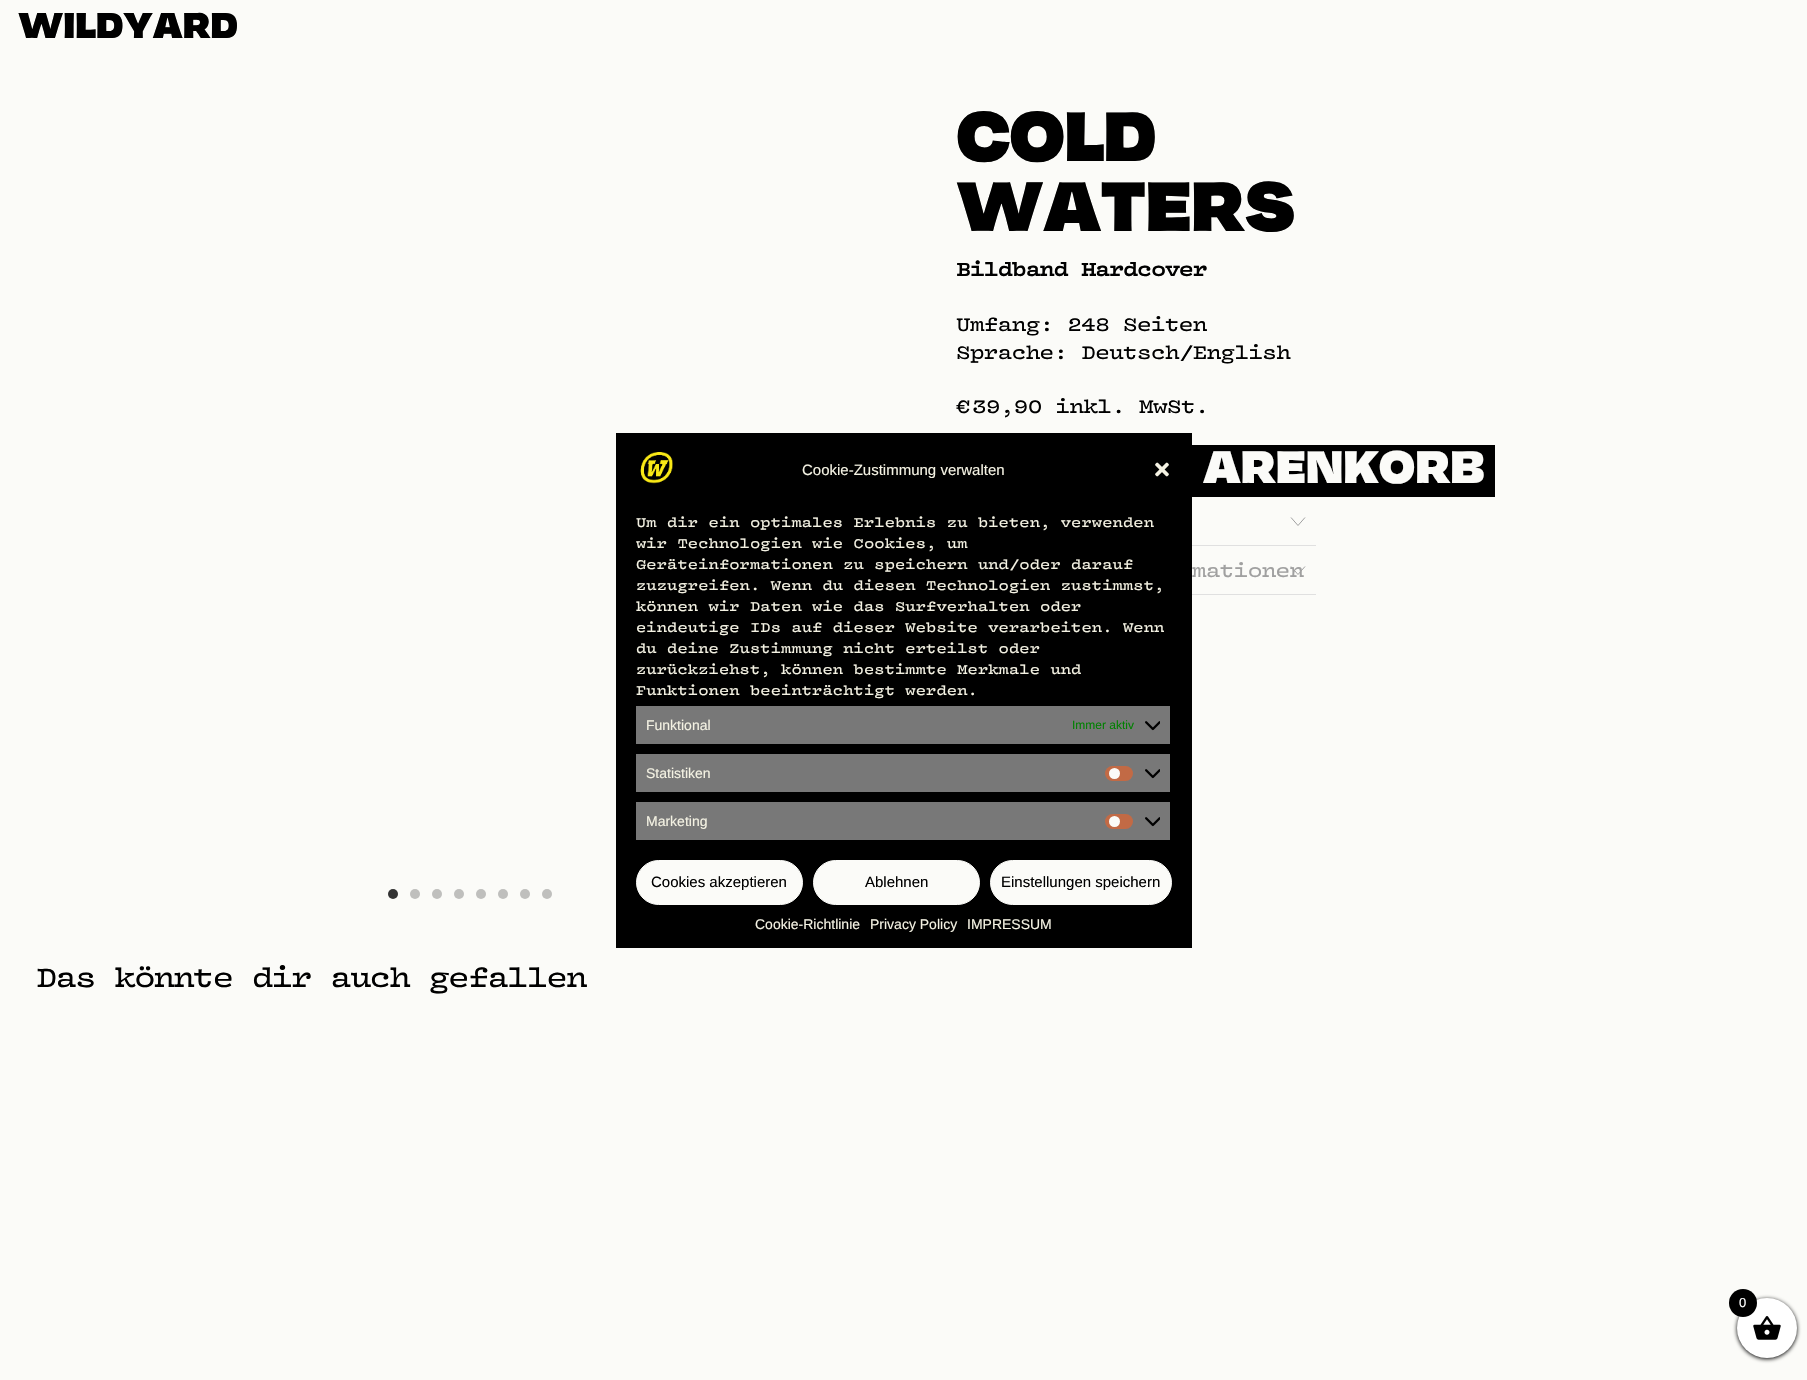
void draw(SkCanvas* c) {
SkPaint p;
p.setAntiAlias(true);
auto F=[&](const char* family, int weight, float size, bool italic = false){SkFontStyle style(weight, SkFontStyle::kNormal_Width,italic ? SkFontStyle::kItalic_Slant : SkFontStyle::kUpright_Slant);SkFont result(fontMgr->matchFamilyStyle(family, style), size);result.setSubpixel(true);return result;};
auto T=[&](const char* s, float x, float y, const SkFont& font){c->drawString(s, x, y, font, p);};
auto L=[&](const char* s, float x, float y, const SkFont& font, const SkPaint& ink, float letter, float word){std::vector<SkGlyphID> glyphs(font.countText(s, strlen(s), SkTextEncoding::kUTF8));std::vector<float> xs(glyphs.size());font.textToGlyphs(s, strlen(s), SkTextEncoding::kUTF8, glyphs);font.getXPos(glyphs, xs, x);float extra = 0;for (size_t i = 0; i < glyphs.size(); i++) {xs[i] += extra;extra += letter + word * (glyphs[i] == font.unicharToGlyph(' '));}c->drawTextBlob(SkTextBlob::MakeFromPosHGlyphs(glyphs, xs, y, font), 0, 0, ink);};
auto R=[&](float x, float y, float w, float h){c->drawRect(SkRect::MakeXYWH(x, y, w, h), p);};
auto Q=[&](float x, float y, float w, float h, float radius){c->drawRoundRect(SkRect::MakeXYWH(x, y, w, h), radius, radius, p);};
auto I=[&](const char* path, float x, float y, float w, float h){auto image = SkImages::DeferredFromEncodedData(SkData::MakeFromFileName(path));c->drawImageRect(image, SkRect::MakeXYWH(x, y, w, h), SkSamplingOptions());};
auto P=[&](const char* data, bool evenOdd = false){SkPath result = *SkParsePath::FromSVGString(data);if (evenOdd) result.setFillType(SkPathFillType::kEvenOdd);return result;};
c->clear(0xfffbfbf8);
auto f1 = F("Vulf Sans",900,40);
p.setColor(0xff000000);
T("WILDYARD",18,38,f1);
auto f2 = F("Vulf Sans",900,77.5);
L("COLD",956,161,f2,p,-.75,0);
L("WATERS",956,231,f2,p,-.75,0);
auto f3 = F("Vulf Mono",700,19.9);
L("Bildband Hardcover",956,276,f3,p,-.8,0);
auto f4 = F("Vulf Mono",400,19.9);
L("Umfang: 248 Seiten",956,331,f4,p,-.8,0);
L("Sprache: Deutsch/English",956,359,f4,p,-.8,0);
L("€",956,413,f4,p,-.8,0);
L("39,90 inkl. MwSt.",972,413,f4,p,-.8,0);
R(1192,445,303,52);
auto f5 = F("Vulf Sans",900,50.5);
p.setColor(0xfffbfbf8);
T("ARENKORB",1203,483,f5);
p.setColor(0xffe0e0e0);
R(1192,545,124,1);
p.setStroke(true);
p.setStrokeWidth(1);
p.setColor(0xffa0a0a0);
c->drawPath(P("M1291 517.5l7 8l7-8"),p);
p.setStroke(false);
p.setColor(0xffe0e0e0);
R(1192,594,124,1);
p.setColor(0xffa0a0a0);
L("mationen",1192,577,f4,p,-.8,0);
p.setStroke(true);
c->drawPath(P("M1291 566.5l7 8l7-8"),p);
p.setStroke(false);
p.setColor(0xff333333);
c->drawCircle(393,894,5,p);
p.setColor(0xffbfbfbd);
c->drawCircle(415,894,5,p);
c->drawCircle(437,894,5,p);
c->drawCircle(459,894,5,p);
c->drawCircle(481,894,5,p);
c->drawCircle(503,894,5,p);
c->drawCircle(525,894,5,p);
c->drawCircle(547,894,5,p);
auto f6 = F("Vulf Mono",400,28.9);
p.setColor(0xff000000);
L("Das könnte dir auch gefallen",36,987,f6,p,-1.75,0);
R(616,433,576,515);
I("1.png",640,452,33,32);
auto f7 = F("Liberation Sans",400,15);
p.setColor(0xfff4f2e3);
T("Cookie-Zustimmung verwalten",802,475,f7);
I("2.png",1155,462,14,15);
auto f8 = F("Vulf Mono",400,14);
T("Um dir ein optimales Erlebnis zu bieten, verwenden",636,527,f8);
T("wir Technologien wie Cookies, um",636,548,f8);
T("Geräteinformationen zu speichern und/oder darauf",636,569,f8);
T("zuzugreifen. Wenn du diesen Technologien zustimmst,",636,590,f8);
T("können wir Daten wie das Surfverhalten oder",636,611,f8);
T("eindeutige IDs auf dieser Website verarbeiten. Wenn",636,632,f8);
T("du deine Zustimmung nicht erteilst oder",636,653,f8);
T("zurückziehst, können bestimmte Merkmale und",636,674,f8);
T("Funktionen beeinträchtigt werden.",636,695,f8);
p.setColor(0xff787878);
R(636,706,534,38);
auto f9 = F("Liberation Sans",400,14);
p.setColor(0xfff4f2e3);
T("Funktional",646,730,f9);
auto f10 = F("Liberation Sans",400,12);
p.setColor(0xff008000);
T("Immer aktiv",1072,729,f10);
I("3.png",1145,721,15,10);
p.setColor(0xff787878);
R(636,754,534,38);
p.setColor(0xfff4f2e3);
T("Statistiken",646,778,f9);
p.setColor(0xffc26a45);
Q(1105,766,28,15,7.5);
p.setColor(0xfffbfbf8);
c->drawCircle(1114.5,773.5,5.5,p);
I("3.png",1145,769,15,10);
p.setColor(0xff787878);
R(636,802,534,38);
p.setColor(0xfff4f2e3);
T("Marketing",646,826,f9);
p.setColor(0xffc26a45);
Q(1105,814,28,15,7.5);
p.setColor(0xfffbfbf8);
c->drawCircle(1114.5,821.5,5.5,p);
I("3.png",1145,817,15,10);
c->drawRoundRect(SkRect::MakeXYWH(636.5,860.5,166,44),22,22,p);
p.setStroke(true);
c->drawRoundRect(SkRect::MakeXYWH(636.5,860.5,166,44),22,22,p);
p.setStroke(false);
p.setColor(0xff000000);
T("Cookies akzeptieren",651,887,f7);
p.setColor(0xfffbfbf8);
c->drawRoundRect(SkRect::MakeXYWH(813.5,860.5,166,44),22,22,p);
p.setStroke(true);
c->drawRoundRect(SkRect::MakeXYWH(813.5,860.5,166,44),22,22,p);
p.setStroke(false);
p.setColor(0xff000000);
T("Ablehnen",865,887,f7);
p.setColor(0xfffbfbf8);
c->drawRoundRect(SkRect::MakeXYWH(990.5,860.5,181,44),22,22,p);
p.setStroke(true);
c->drawRoundRect(SkRect::MakeXYWH(990.5,860.5,181,44),22,22,p);
p.setStroke(false);
p.setColor(0xff000000);
T("Einstellungen speichern",1001,887,f7);
p.setColor(0xfff4f2e3);
T("Cookie-Richtlinie",755,929,f9);
T("Privacy Policy",870,929,f9);
T("IMPRESSUM",967,929,f9);
p.setColor(0xff000000);
p.setMaskFilter(SkMaskFilter::MakeBlur(kNormal_SkBlurStyle, 2));
c->drawRoundRect(SkRect::MakeXYWH(1737,1299,60,60),30,30,p);
p.setMaskFilter(nullptr);
p.setColor(0xffffffff);
c->drawCircle(1767,1328,30,p);
I("4.png",1753,1316,28,24);
p.setColor(0xff000000);
c->drawCircle(1743,1303,14,p);
auto f11 = F("Liberation Sans",400,13);
p.setColor(0xffffffff);
T("0",1739,1307,f11);
}
